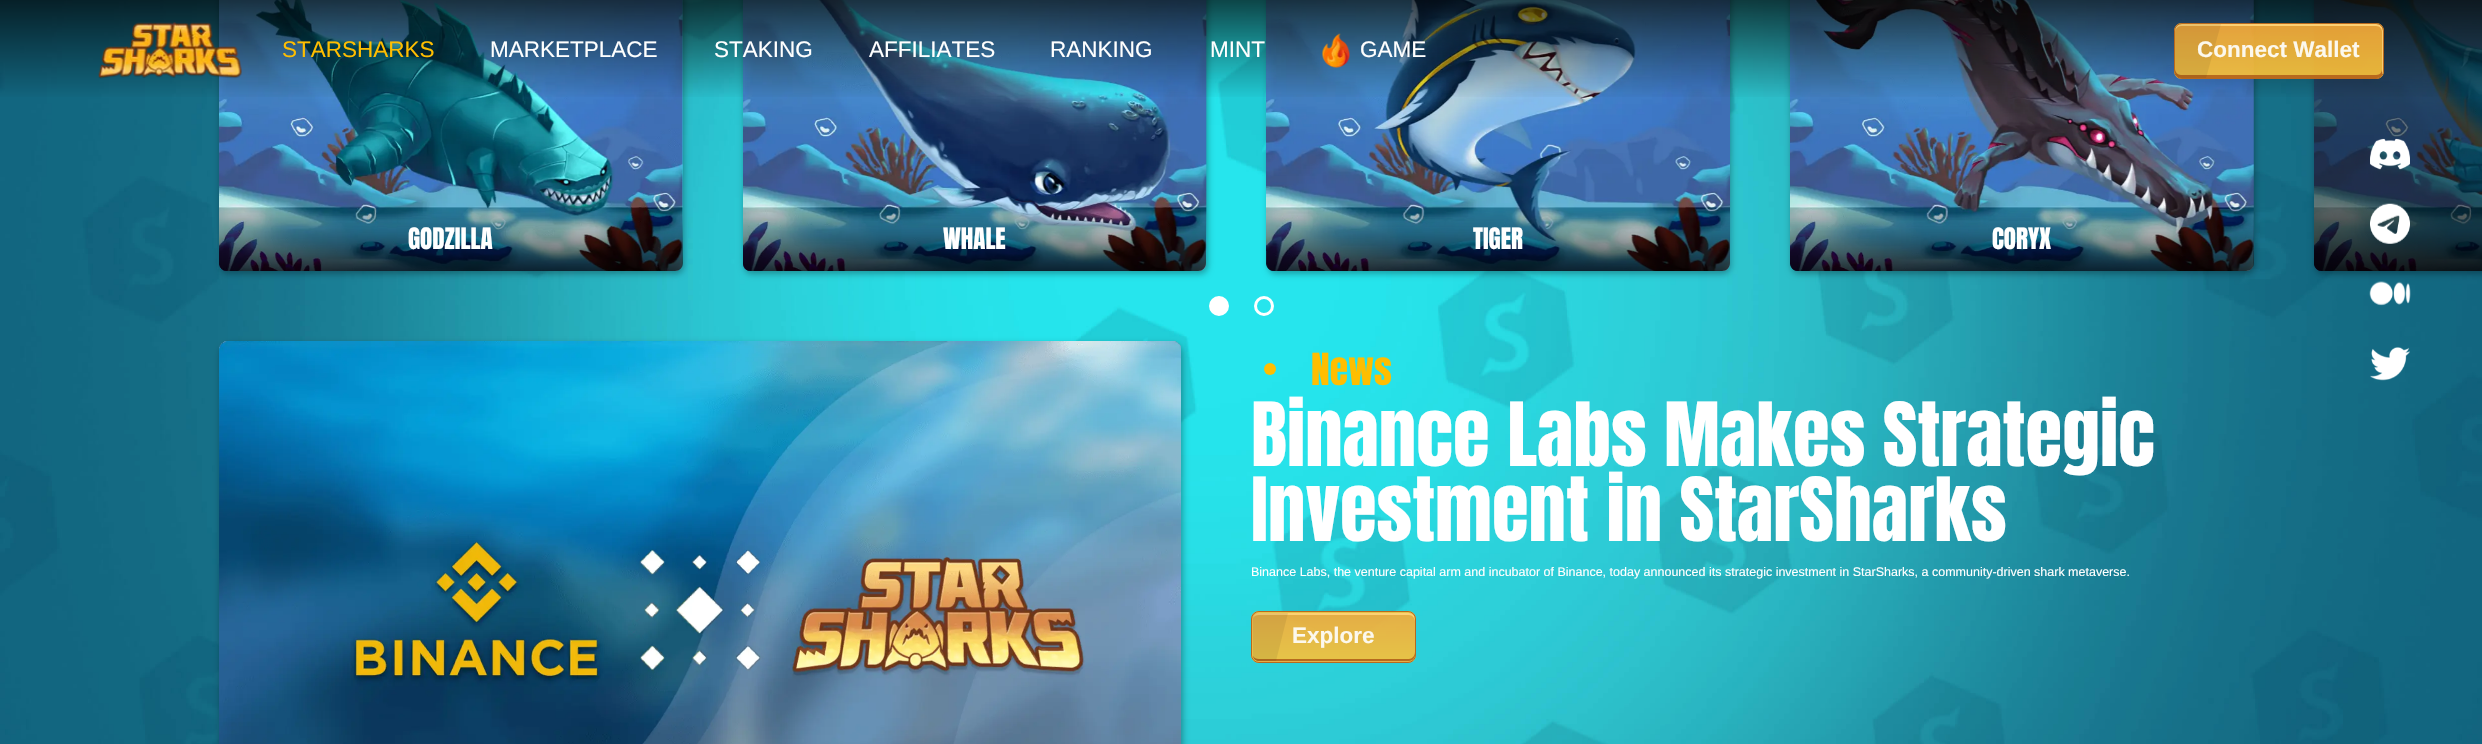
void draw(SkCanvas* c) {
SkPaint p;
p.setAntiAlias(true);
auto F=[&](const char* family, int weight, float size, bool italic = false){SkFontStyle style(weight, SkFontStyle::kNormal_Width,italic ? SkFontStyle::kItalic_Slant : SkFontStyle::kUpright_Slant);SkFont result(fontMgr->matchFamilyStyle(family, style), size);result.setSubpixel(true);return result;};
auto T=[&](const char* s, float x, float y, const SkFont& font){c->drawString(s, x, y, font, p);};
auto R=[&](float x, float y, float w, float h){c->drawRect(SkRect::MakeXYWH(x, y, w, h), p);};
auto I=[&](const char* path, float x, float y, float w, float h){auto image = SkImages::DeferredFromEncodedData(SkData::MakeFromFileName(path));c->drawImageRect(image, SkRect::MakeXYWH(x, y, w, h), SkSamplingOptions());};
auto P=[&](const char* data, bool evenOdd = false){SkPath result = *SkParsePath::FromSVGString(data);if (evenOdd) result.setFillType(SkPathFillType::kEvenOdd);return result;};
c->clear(0xffffffff);
I("3.png",0,0,2482,744);
c->save();
c->clipPath(P("M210 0h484v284h-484zm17-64h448c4.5 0 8 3.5 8 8v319c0 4.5-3.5 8-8 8h-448c-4.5 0-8-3.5-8-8v-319c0-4.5 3.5-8 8-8z",true),true);
p.setColor(0x4d000000);
p.setMaskFilter(SkMaskFilter::MakeBlur(kNormal_SkBlurStyle, 3));
c->drawRoundRect(SkRect::MakeXYWH(220,-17,464,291),8,8,p);
p.setMaskFilter(nullptr);
c->restore();
I("4.png",219,0,464,271);
p.setMaskFilter(SkMaskFilter::MakeBlur(kNormal_SkBlurStyle, 3));
c->drawRoundRect(SkRect::MakeXYWH(744,-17,464,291),8,8,p);
p.setMaskFilter(nullptr);
I("5.png",743,0,464,271);
p.setMaskFilter(SkMaskFilter::MakeBlur(kNormal_SkBlurStyle, 3));
c->drawRoundRect(SkRect::MakeXYWH(1268,-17,463,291),8,8,p);
p.setMaskFilter(nullptr);
I("6.png",1266,0,464,271);
p.setMaskFilter(SkMaskFilter::MakeBlur(kNormal_SkBlurStyle, 3));
c->drawRoundRect(SkRect::MakeXYWH(1791,-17,464,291),8,8,p);
p.setMaskFilter(nullptr);
I("7.png",1790,0,464,271);
p.setMaskFilter(SkMaskFilter::MakeBlur(kNormal_SkBlurStyle, 3));
c->drawRoundRect(SkRect::MakeXYWH(2315,-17,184,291),8,8,p);
p.setMaskFilter(nullptr);
I("8.png",2314,0,168,271);
p.setColor(0x80000000);
c->drawPath(P("M2314 0h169v271h-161c-4.5 0-8-3.5-8-8z"),p);
{
const SkColor colors[] = {0xb0000000,0x00000000};
const float stops[] = {0,1};
const SkPoint ends[] = {{1241,0}, {1241,100}};
p.setShader(SkGradientShader::MakeLinear(ends, colors, stops, 2, SkTileMode::kClamp));
p.setAlpha(255);
}
R(0,0,2482,97);
I("1.png",98,22,144,57);
auto f1 = F("Liberation Sans",400,22.5);
p.setShader(nullptr);
p.setColor(0xffffbe00);
T("STARSHARKS",282,57,f1);
p.setColor(0xffffffff);
T("MARKETPLACE",490,57,f1);
T("STAKING",714,57,f1);
T("AFFILIATES",869,57,f1);
T("RANKING",1050,57,f1);
T("MINT",1210,57,f1);
I("2.png",1322,33,28,35);
T("GAME",1360,57,f1);
c->save();
c->clipPath(P("M2182 23h194c4.5 0 8 3.5 8 8v40c0 4.5-3.5 8-8 8h-194c-4.5 0-8-3.5-8-8v-40c0-4.5 3.5-8 8-8z"),true);
{
const SkColor colors[] = {0xe6f9ab37,0xe6fbc337};
const float stops[] = {0,1};
const SkPoint ends[] = {{2279,-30}, {2279,24}};
p.setShader(SkGradientShader::MakeLinear(ends, colors, stops, 2, SkTileMode::kClamp));
p.setAlpha(255);
}
R(2174,23,210,1);
{
const SkColor colors[] = {0xe6f9ab37,0xe6fbc337};
const float stops[] = {0,1};
const SkPoint ends[] = {{2279,24}, {2279,78}};
p.setShader(SkGradientShader::MakeLinear(ends, colors, stops, 2, SkTileMode::kClamp));
p.setAlpha(255);
}
R(2174,24,210,54);
{
const SkColor colors[] = {0xe6f9ab37,0xe6fbc337};
const float stops[] = {0,1};
const SkPoint ends[] = {{2279,77}, {2279,131}};
p.setShader(SkGradientShader::MakeLinear(ends, colors, stops, 2, SkTileMode::kClamp));
p.setAlpha(255);
}
R(2174,78,210,1);
c->restore();
p.setShader(nullptr);
p.setColor(0xe6b26119);
c->drawPath(P("M2175 69v3c0 3 3 6 6 6h196c3 0 6-3 6-6v-42c0-1 0-2-1-3v42c0 3-2 6-6 6h-195c-3 0-6-3-6-6z"),p);
p.setColor(0xe6ffd579);
c->drawPath(P("M2181 26h195c4 0 6 3 6 6v44c1-1 1-3 1-4v-42c0-3-3-6-6-6h-196c-3 0-6 3-6 6v2c0-3 3-6 6-6z"),p);
p.setStroke(true);
p.setStrokeWidth(1);
p.setColor(0xe6b26119);
c->drawRoundRect(SkRect::MakeXYWH(2174.5,23.5,209,55),7.5,7.5,p);
p.setStroke(false);
p.setColor(0x12000000);
c->drawPath(P("M2181 24h40l-15 54h-25c-3 0-6-3-6-6v-42c0-3 3-6 6-6z"),p);
auto f2 = F("Liberation Sans",700,22.5);
p.setColor(0xfffcf8ed);
T("Connect Wallet",2197,57,f2);
{
const SkColor colors[] = {0x00000000,0xb3000000};
const float stops[] = {0,1};
const SkPoint ends[] = {{451,208}, {451,271}};
p.setShader(SkGradientShader::MakeLinear(ends, colors, stops, 2, SkTileMode::kClamp));
p.setAlpha(255);
}
c->drawPath(P("M219 208h464v55c0 4.5-3.5 8-8 8h-448c-4.5 0-8-3.5-8-8z"),p);
auto f3 = F("Anton",400,25);
p.setShader(nullptr);
p.setColor(0xffffffff);
T("GODZILLA",408,249,f3);
{
const SkColor colors[] = {0x00000000,0xb3000000};
const float stops[] = {0,1};
const SkPoint ends[] = {{974,208}, {974,271}};
p.setShader(SkGradientShader::MakeLinear(ends, colors, stops, 2, SkTileMode::kClamp));
p.setAlpha(255);
}
c->drawPath(P("M743 208h463v55c0 4.5-3.5 8-8 8h-447c-4.5 0-8-3.5-8-8z"),p);
p.setShader(nullptr);
p.setColor(0xffffffff);
T("WHALE",943,249,f3);
{
const SkColor colors[] = {0x00000000,0xb3000000};
const float stops[] = {0,1};
const SkPoint ends[] = {{1498,208}, {1498,271}};
p.setShader(SkGradientShader::MakeLinear(ends, colors, stops, 2, SkTileMode::kClamp));
p.setAlpha(255);
}
c->drawPath(P("M1266 208h464v55c0 4.5-3.5 8-8 8h-448c-4.5 0-8-3.5-8-8z"),p);
p.setShader(nullptr);
p.setColor(0xffffffff);
T("TIGER",1473,249,f3);
{
const SkColor colors[] = {0x00000000,0xb3000000};
const float stops[] = {0,1};
const SkPoint ends[] = {{2022,208}, {2022,271}};
p.setShader(SkGradientShader::MakeLinear(ends, colors, stops, 2, SkTileMode::kClamp));
p.setAlpha(255);
}
c->drawPath(P("M1790 208h464v55c0 4.5-3.5 8-8 8h-448c-4.5 0-8-3.5-8-8z"),p);
p.setShader(nullptr);
p.setColor(0xffffffff);
T("CORYX",1992,249,f3);
{
const SkColor colors[] = {0x00000000,0xb3000000};
const float stops[] = {0,1};
const SkPoint ends[] = {{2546,208}, {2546,271}};
p.setShader(SkGradientShader::MakeLinear(ends, colors, stops, 2, SkTileMode::kClamp));
p.setAlpha(255);
}
c->drawPath(P("M2314 208h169v63h-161c-4.5 0-8-3.5-8-8z"),p);
p.setShader(nullptr);
p.setColor(0xffffffff);
c->drawCircle(1219,306,8.5,p);
p.setStroke(true);
p.setStrokeWidth(3);
c->drawCircle(1219,306,8.5,p);
c->drawCircle(1264,306,8.5,p);
p.setStroke(false);
p.setColor(0x4d000000);
p.setMaskFilter(SkMaskFilter::MakeBlur(kNormal_SkBlurStyle, 3));
c->drawRoundRect(SkRect::MakeXYWH(220,344,963,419),10,10,p);
p.setMaskFilter(nullptr);
I("9.png",219,341,962,403);
p.setColor(0xffffbe00);
c->drawCircle(1270,369,6,p);
auto f4 = F("Anton",400,37.5);
T("News",1311,385,f4);
auto f5 = F("Anton",400,75);
p.setColor(0xffffffff);
T("Binance Labs Makes Strategic",1251,466,f5);
T("Investment in StarSharks",1251,541,f5);
auto f6 = F("Liberation Sans",400,12.5);
T("Binance Labs, the venture capital arm and incubator of Binance, today announced its strategic investment in StarSharks, a community-driven shark metaverse.",1251,576,f6);
p.setColor(0xffb76b1e);
c->drawPath(P("M1253 656c0 3 3 5 6 5h150c3 0 6-3 6-6v-3c0 4-3 7-6 7h-150c-3 0-5-1-6-3z"),p);
p.setColor(0xe6ffd579);
c->drawPath(P("M1259 615h150c3 0 6 3 6 6v-2c0-3-3-6-6-6h-150c-3 0-5 2-6 5c1-2 3-3 6-3z"),p);
p.setStroke(true);
p.setStrokeWidth(1);
p.setColor(0xe6b26119);
c->drawRoundRect(SkRect::MakeXYWH(1251.5,611.5,164,51),7.5,7.5,p);
p.setStroke(false);
p.setColor(0x12000000);
c->drawPath(P("M1259 613h29l-12 48h-17c-3 0-6-3-6-6v-36c0-3 3-6 6-6z"),p);
p.setColor(0xfffcf8ed);
T("Explore",1292,643,f2);
I("10.png",2370,138,40,32);
I("11.png",2370,203,40,41);
I("12.png",2369,281,42,25);
I("13.png",2370,347,40,34);
}
